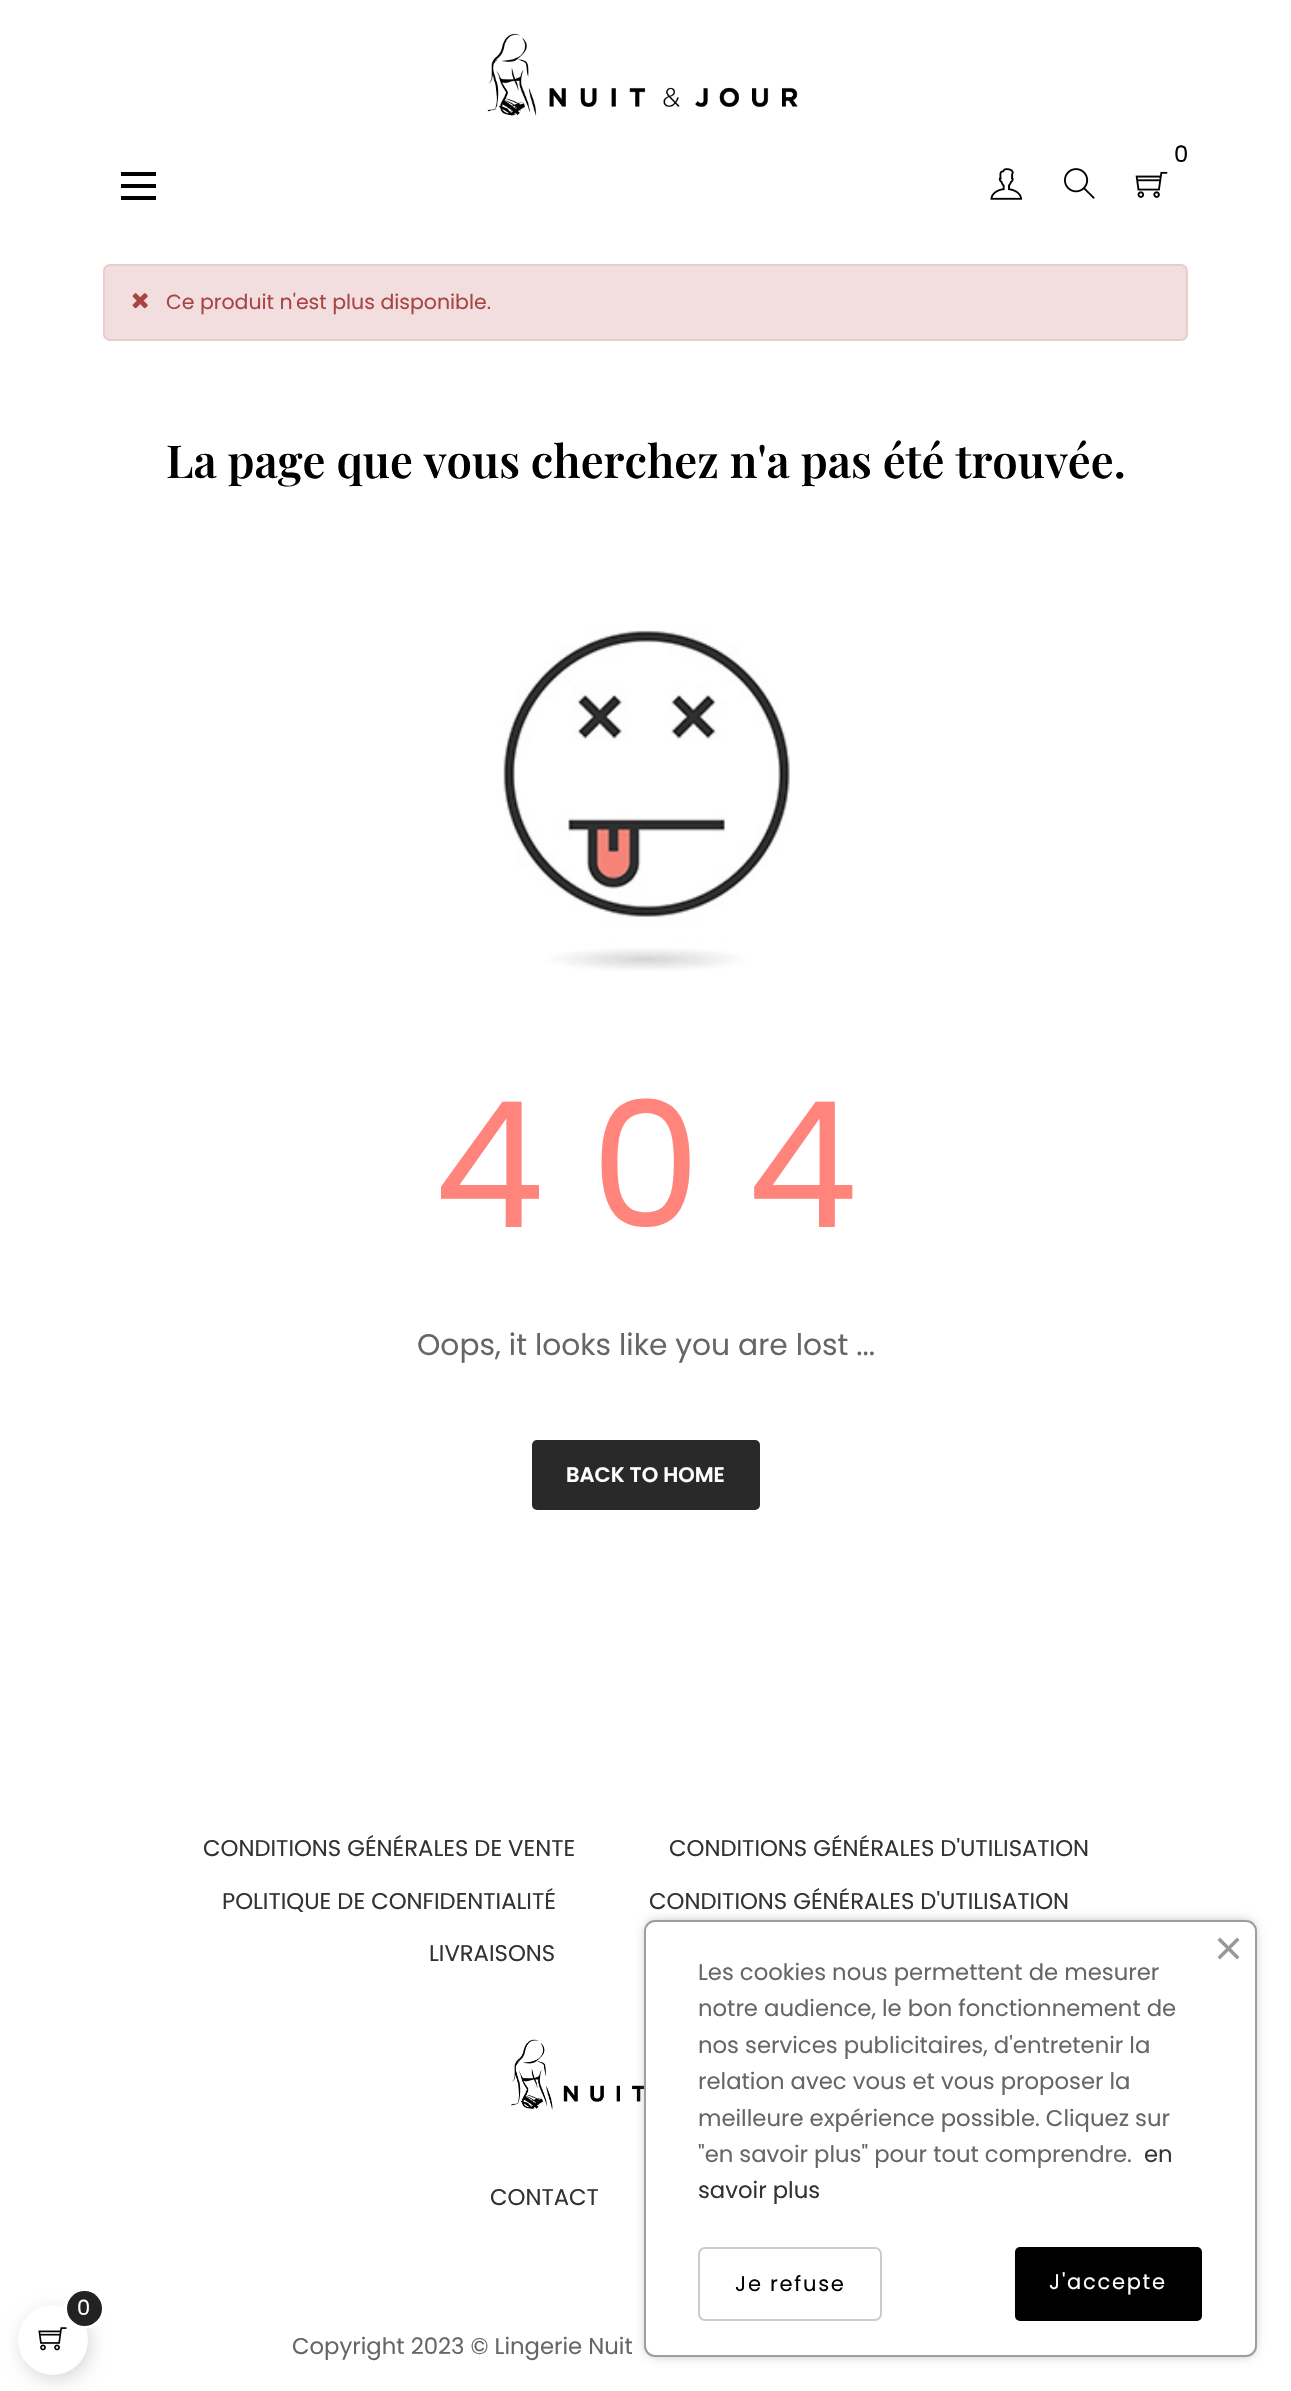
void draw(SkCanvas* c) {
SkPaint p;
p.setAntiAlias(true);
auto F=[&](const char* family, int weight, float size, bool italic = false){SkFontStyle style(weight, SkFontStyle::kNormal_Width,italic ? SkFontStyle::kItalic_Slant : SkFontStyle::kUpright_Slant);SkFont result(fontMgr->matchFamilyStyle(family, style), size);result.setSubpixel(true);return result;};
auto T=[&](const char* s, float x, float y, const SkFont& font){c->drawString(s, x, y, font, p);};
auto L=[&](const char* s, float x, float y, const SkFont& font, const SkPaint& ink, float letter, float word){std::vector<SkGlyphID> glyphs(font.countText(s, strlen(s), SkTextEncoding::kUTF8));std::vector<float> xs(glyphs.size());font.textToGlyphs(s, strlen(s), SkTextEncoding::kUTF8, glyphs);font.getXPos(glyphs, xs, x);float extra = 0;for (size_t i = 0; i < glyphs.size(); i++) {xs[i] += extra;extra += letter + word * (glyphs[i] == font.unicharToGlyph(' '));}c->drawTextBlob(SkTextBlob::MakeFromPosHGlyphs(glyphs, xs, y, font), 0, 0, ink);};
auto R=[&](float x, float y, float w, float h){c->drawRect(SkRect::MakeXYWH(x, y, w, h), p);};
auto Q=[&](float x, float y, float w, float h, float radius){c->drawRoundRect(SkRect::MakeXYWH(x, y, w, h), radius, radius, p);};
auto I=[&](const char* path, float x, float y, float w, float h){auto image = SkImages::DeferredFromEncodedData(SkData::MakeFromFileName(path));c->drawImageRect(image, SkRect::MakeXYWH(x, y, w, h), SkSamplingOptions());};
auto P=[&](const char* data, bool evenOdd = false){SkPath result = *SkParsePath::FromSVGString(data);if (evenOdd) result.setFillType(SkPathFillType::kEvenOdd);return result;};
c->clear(0xffffffff);
I("1.png",487,33,311,83);
auto f1 = F("Poppins",400,22.75);
p.setColor(0xff000000);
T("0",1174,162,f1);
I("2.png",1135,171,33,27);
I("3.png",990,168,32,32);
I("4.png",1064,168,31,31);
R(121,172,35,4);
R(121,196,35,4);
R(121,184,35,4);
p.setColor(0xfff2dede);
c->drawRoundRect(SkRect::MakeXYWH(104,265,1083,75),6,6,p);
p.setStroke(true);
p.setStrokeWidth(2);
p.setColor(0xffebcccc);
c->drawRoundRect(SkRect::MakeXYWH(104,265,1083,75),6,6,p);
I("5.png",132,293,16,16);
auto f2 = F("Poppins",400,20.5);
p.setStroke(false);
p.setColor(0xffa94442);
T("Ce produit n'est plus disponible.",166,309,f2);
auto f3 = F("Playfair Display",600,45.5);
p.setColor(0xff000000);
T("La page que vous cherchez n'a pas été trouvée.",166,478,f3);
I("6.png",503,630,287,341);
auto f4 = F("Poppins",400,175);
p.setColor(0xffff847b);
T("4 0 4",434,1227,f4);
auto f5 = F("Poppins",400,29.75);
p.setColor(0xff666666);
T("Oops, it looks like you are lost ...",417,1355,f5);
p.setColor(0xff292929);
Q(532,1440,228,70,5);
auto f6 = F("Poppins",600,21);
p.setColor(0xffffffff);
T("BACK TO HOME",566,1482,f6);
p.setColor(0xff333333);
T("CONDITIONS GÉNÉRALES DE VENTE",203,1856,f1);
T("CONDITIONS GÉNÉRALES D'UTILISATION",669,1856,f1);
T("POLITIQUE DE CONFIDENTIALITÉ",222,1909,f1);
T("CONDITIONS GÉNÉRALES D'UTILISATION",649,1909,f1);
T("LIVRAISONS",429,1961,f1);
I("7.png",511,2039,133,71);
T("CONTACT",490,2205,f1);
p.setColor(0xff666666);
T("Copyright 2023 © Lingerie Nuit",292,2354,f1);
p.setColor(0xff9e9e9e);
p.setMaskFilter(SkMaskFilter::MakeBlur(kNormal_SkBlurStyle, 6));
c->drawRoundRect(SkRect::MakeXYWH(648,1923,605,431),7,7,p);
p.setMaskFilter(nullptr);
p.setColor(0xffffffff);
c->drawRoundRect(SkRect::MakeXYWH(645,1921,611,435),10,10,p);
p.setStroke(true);
p.setColor(0xff9e9e9e);
c->drawRoundRect(SkRect::MakeXYWH(645,1921,611,435),10,10,p);
p.setStroke(false);
p.setColor(0xff999999);
c->drawPath(P("M1217.5 1957l19.5-19.5l2.5 2.5l-19.5 19.5z"),p);
c->drawPath(P("M1220 1937.5l19.5 19.5l-2.5 2.5l-19.5-19.5z"),p);
p.setColor(0xff666666);
T("Les cookies nous permettent de mesurer",698,1980,f1);
T("notre audience, le bon fonctionnement de",698,2016,f1);
T("nos services publicitaires, d'entretenir la",698,2053,f1);
T("relation avec vous et vous proposer la",698,2089,f1);
T("meilleure expérience possible. Cliquez sur",698,2126,f1);
T("\"en savoir plus\" pour tout comprendre.",698,2162,f1);
p.setColor(0xff333333);
T("en",1144,2162,f1);
T("savoir plus",698,2198,f1);
p.setStroke(true);
p.setColor(0xffcccccc);
c->drawRoundRect(SkRect::MakeXYWH(699,2248,182,72),6,6,p);
auto f7 = F("Poppins",400,21);
p.setStroke(false);
p.setColor(0xff000000);
L("Je refuse",735,2291,f7,p,1.75,0);
Q(1015,2247,187,74,5);
p.setColor(0xffffffff);
L("J'accepte",1049,2289,f7,p,1.75,0);
p.setColor(0x26000000);
p.setMaskFilter(SkMaskFilter::MakeBlur(kNormal_SkBlurStyle, 9));
c->drawRoundRect(SkRect::MakeXYWH(21,2310,70,70),35,35,p);
p.setMaskFilter(nullptr);
p.setColor(0xffffffff);
c->drawCircle(53,2340,35,p);
I("8.png",38,2327,29,24);
p.setStroke(true);
p.setStrokeWidth(4);
c->drawCircle(84,2308,19,p);
p.setStroke(false);
p.setColor(0xff222222);
c->drawCircle(84.5,2308.5,17.5,p);
p.setColor(0xffffffff);
T("0",77,2315,f7);
}
